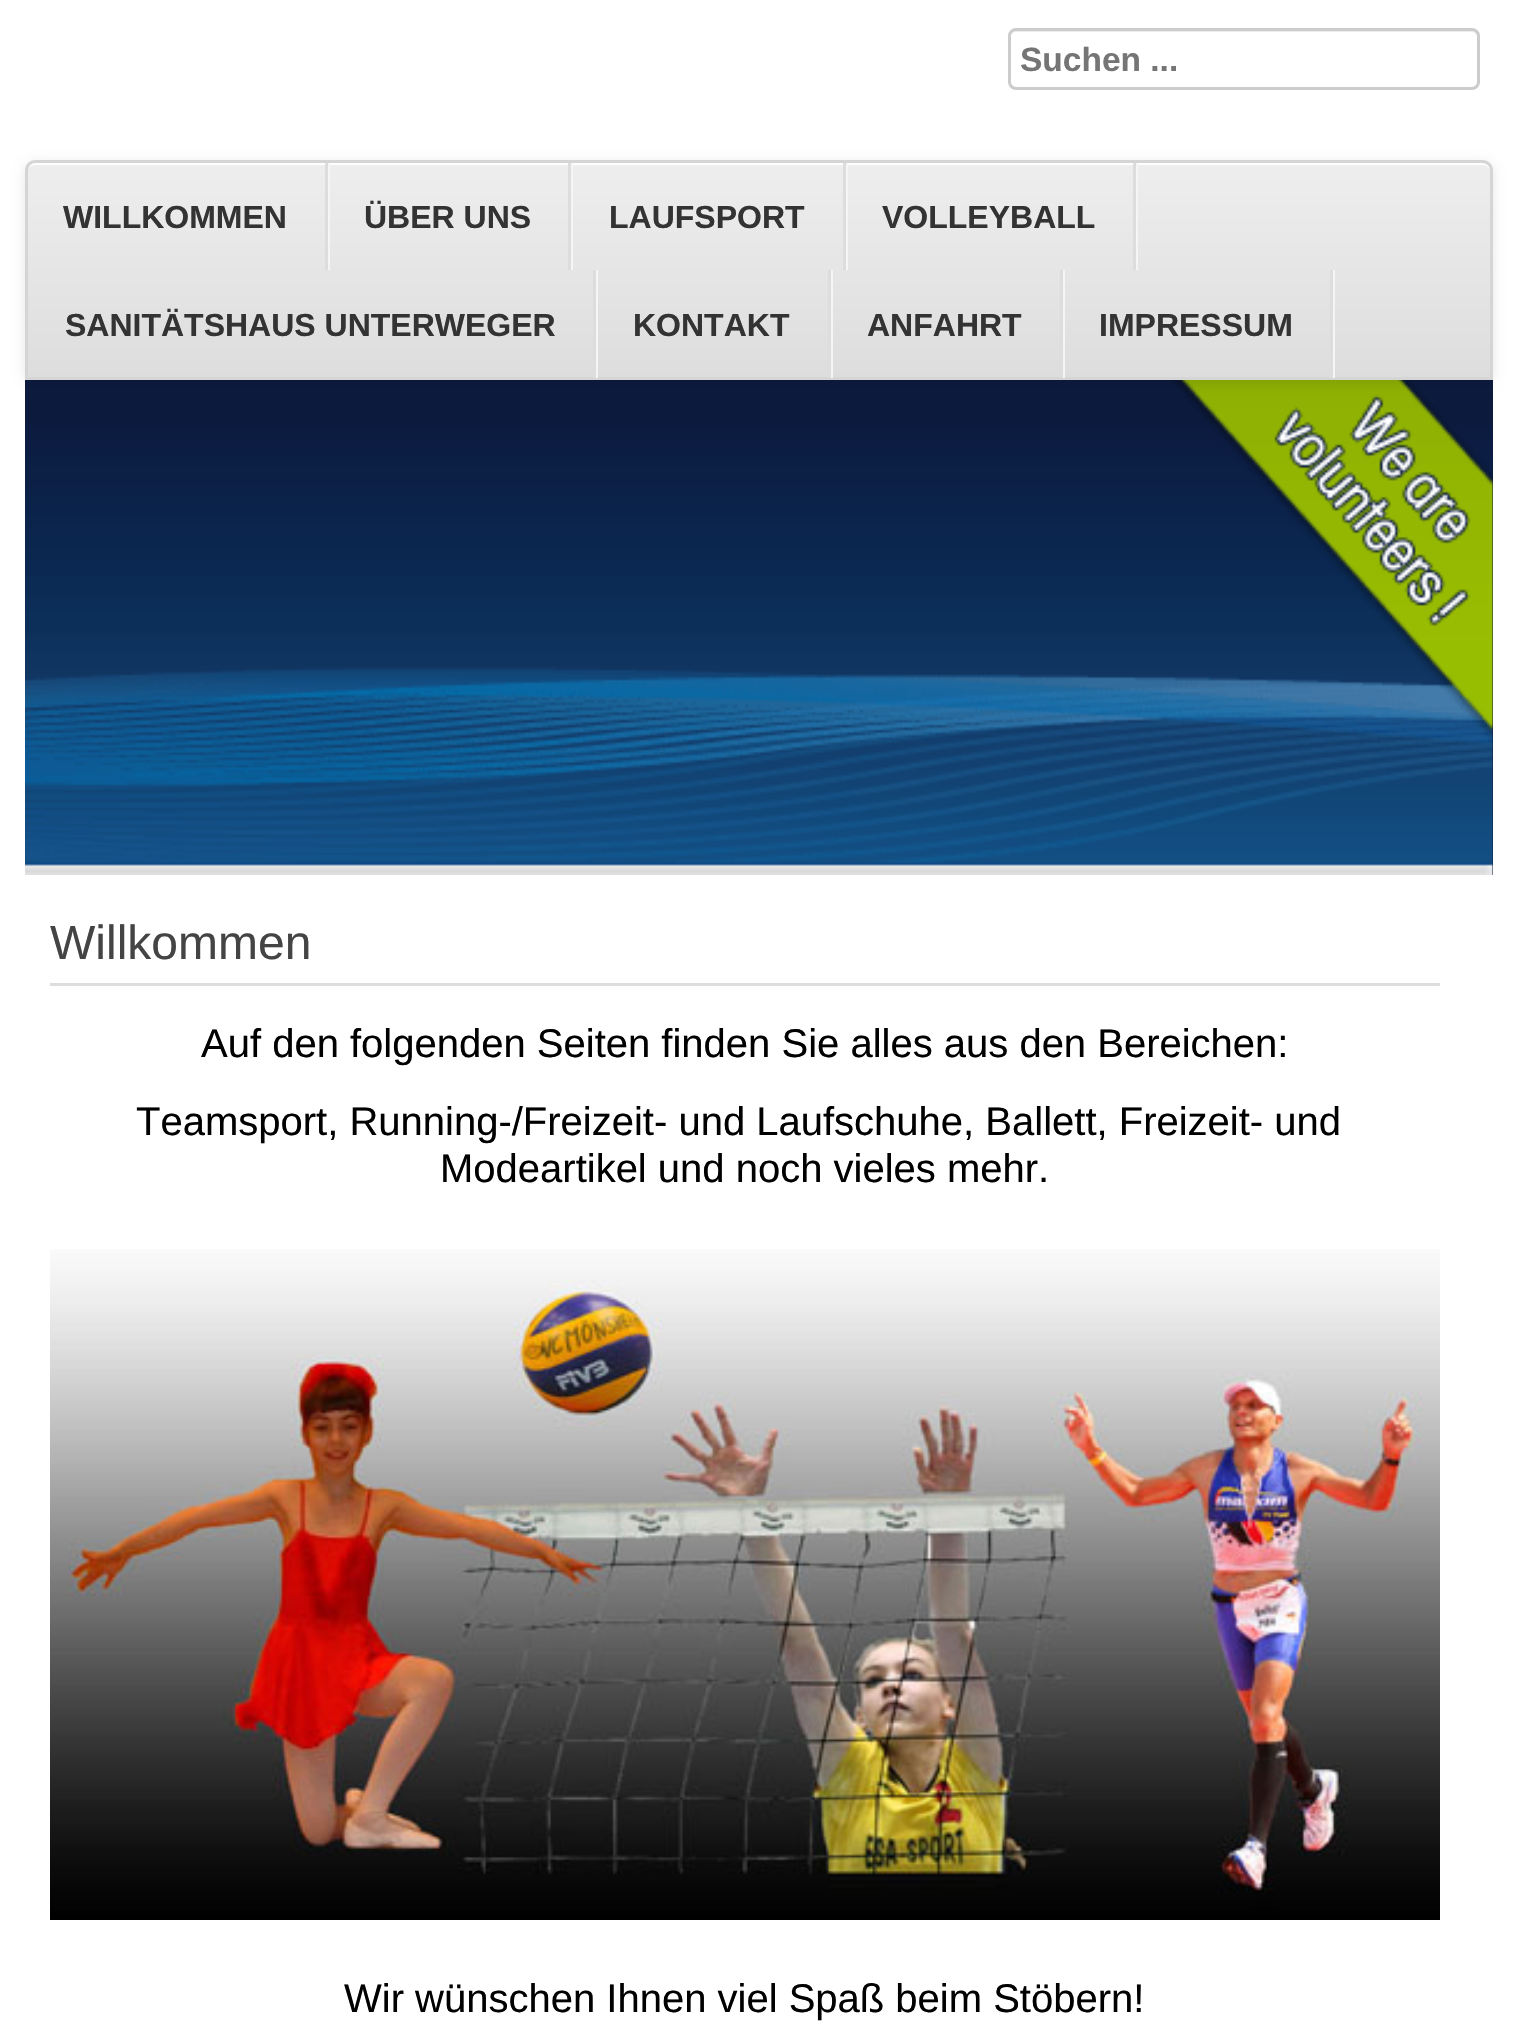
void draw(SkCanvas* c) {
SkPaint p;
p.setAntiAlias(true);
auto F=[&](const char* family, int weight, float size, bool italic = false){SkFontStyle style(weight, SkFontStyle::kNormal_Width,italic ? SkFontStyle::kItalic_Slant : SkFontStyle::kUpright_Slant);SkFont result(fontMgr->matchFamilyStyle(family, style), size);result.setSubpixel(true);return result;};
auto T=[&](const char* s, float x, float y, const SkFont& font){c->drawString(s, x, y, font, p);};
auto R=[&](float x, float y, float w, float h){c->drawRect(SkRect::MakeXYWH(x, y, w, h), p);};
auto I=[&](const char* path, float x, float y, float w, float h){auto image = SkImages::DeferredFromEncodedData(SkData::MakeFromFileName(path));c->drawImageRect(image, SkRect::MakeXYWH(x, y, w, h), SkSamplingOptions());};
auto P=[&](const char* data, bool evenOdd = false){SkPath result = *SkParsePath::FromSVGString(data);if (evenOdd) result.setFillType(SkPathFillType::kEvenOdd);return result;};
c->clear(0xffffffff);
p.setColor(0xffececec);
c->drawPath(P("M1015 32h457c3 0 6 3 6 6c0-4 0-8-5-8h-458c-5 0-5 4-5 8c0-3 2-6 5-6z"),p);
p.setStroke(true);
p.setStrokeWidth(3);
p.setColor(0xffcccccc);
c->drawRoundRect(SkRect::MakeXYWH(1009.5,29.5,469,59),6.5,6.5,p);
auto f1 = F("Liberation Sans",700,33.5);
p.setStroke(false);
p.setColor(0xff757575);
T("Suchen ...",1020,71,f1);
p.setColor(0xff0c1a3e);
R(1492,380,1,495);
I("1.png",25,380,1468,495);
p.setColor(0x1a000000);
p.setMaskFilter(SkMaskFilter::MakeBlur(kNormal_SkBlurStyle, 6));
c->drawRoundRect(SkRect::MakeXYWH(25,163,1468,220),10,10,p);
p.setMaskFilter(nullptr);
c->save();
c->clipPath(P("M35 160h1448c5.5 0 10 4.5 10 10v210h-1468v-210c0-5.5 4.5-10 10-10z"),true);
{
const SkColor colors[] = {0xffeeeeee,0xffdddddd};
const float stops[] = {0,1};
const SkPoint ends[] = {{759,162}, {759,378}};
p.setShader(SkGradientShader::MakeLinear(ends, colors, stops, 2, SkTileMode::kClamp));
p.setAlpha(255);
}
R(25,163,1468,214);
c->restore();
p.setShader(nullptr);
p.setColor(0xffffffff);
c->drawPath(P("M35 165h1447c5 0 8 3 8 7c0-5-3-9-8-9h-1446c-5 0-8 4-8 9c0-4 3-7 7-7z"),p);
p.setStroke(true);
p.setColor(0xffd5d5d5);
c->drawPath(P("M35 161.5h1448c4.5 0 8.5 4 8.5 8.5v208.5h-1465v-208.5c0-4.5 4-8.5 8.5-8.5z"),p);
p.setStroke(false);
p.setColor(0xfff5f5f5);
R(328,163,2,107);
p.setColor(0xffdddddd);
R(325,163,3,107);
auto f2 = F("Liberation Sans",700,32);
p.setColor(0xff333333);
T("WILLKOMMEN",63,228,f2);
p.setColor(0xfff5f5f5);
R(571,163,2,107);
p.setColor(0xffdddddd);
R(568,163,3,107);
p.setColor(0xff333333);
T("ÜBER UNS",364,228,f2);
p.setColor(0xfff5f5f5);
R(846,163,2,107);
p.setColor(0xffdddddd);
R(843,163,3,107);
p.setColor(0xff333333);
T("LAUFSPORT",609,228,f2);
p.setColor(0xfff5f5f5);
R(1136,163,2,107);
p.setColor(0xffdddddd);
R(1133,163,3,107);
p.setColor(0xff333333);
T("VOLLEYBALL",882,228,f2);
p.setColor(0xfff5f5f5);
c->drawPath(P("M30 378h568v-108h-3v108z"),p);
p.setColor(0xffdddddd);
R(593,270,3,108);
p.setColor(0xff333333);
T("SANITÄTSHAUS UNTERWEGER",65,336,f2);
p.setColor(0xfff5f5f5);
c->drawPath(P("M598 378h235v-108h-3v108z"),p);
p.setColor(0xffdddddd);
R(828,270,3,108);
p.setColor(0xff333333);
T("KONTAKT",633,336,f2);
p.setColor(0xfff5f5f5);
c->drawPath(P("M833 378h232v-108h-3v108z"),p);
p.setColor(0xffdddddd);
R(1060,270,3,108);
p.setColor(0xff333333);
T("ANFAHRT",867,336,f2);
p.setColor(0xfff5f5f5);
c->drawPath(P("M1065 378h270v-108h-3v108z"),p);
p.setColor(0xffdddddd);
R(1330,270,3,108);
p.setColor(0xff333333);
T("IMPRESSUM",1099,336,f2);
p.setColor(0xffdddddd);
R(50,983,1390,3);
auto f3 = F("Liberation Sans",400,48);
p.setColor(0xff444444);
T("Willkommen",50,959,f3);
auto f4 = F("Liberation Sans",400,40);
p.setColor(0xff000000);
T("Auf den folgenden Seiten finden Sie alles aus den Bereichen:",201,1057,f4);
T("Teamsport, Running-/Freizeit- und Laufschuhe, Ballett, Freizeit- und",136,1135,f4);
T("Modeartikel und noch vieles mehr.",440,1182,f4);
I("2.png",50,1249,1390,671);
T("Wir wünschen Ihnen viel Spaß beim Stöbern!",344,2012,f4);
}
